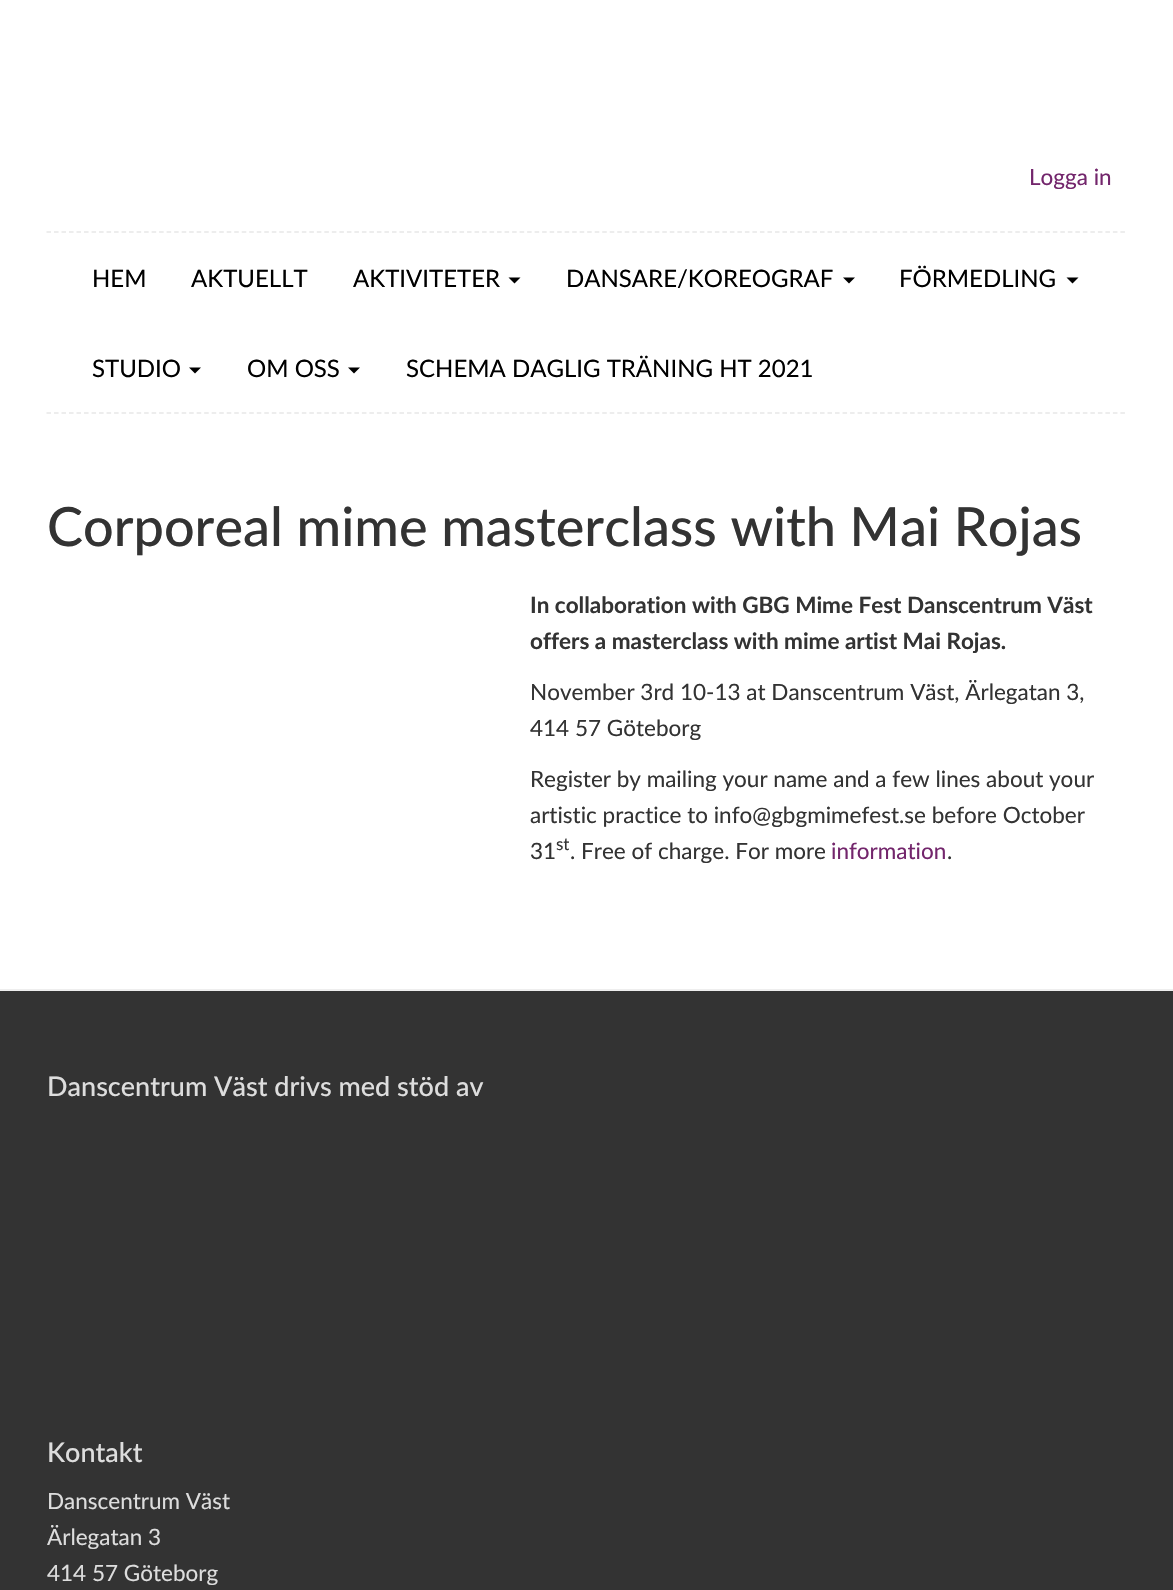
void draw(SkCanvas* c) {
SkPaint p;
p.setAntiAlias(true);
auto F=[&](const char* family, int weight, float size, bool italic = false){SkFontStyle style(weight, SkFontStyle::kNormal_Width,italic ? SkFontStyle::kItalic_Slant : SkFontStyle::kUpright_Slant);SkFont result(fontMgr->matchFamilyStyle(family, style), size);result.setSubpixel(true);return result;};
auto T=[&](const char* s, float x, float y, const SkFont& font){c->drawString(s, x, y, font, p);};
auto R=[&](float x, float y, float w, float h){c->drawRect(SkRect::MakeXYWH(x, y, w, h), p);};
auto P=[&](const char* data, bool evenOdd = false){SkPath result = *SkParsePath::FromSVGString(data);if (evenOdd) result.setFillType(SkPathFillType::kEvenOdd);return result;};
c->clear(0xffffffff);
auto f1 = F("Lato",400,22.5);
p.setColor(0xff73266c);
T("Logga in",1029,185,f1);
p.setStroke(true);
p.setStrokeWidth(1.5);
p.setColor(0xffe7e7e7);
p.setPathEffect(SkDashPathEffect::Make({{4.5f,3.01f}}, 0));
c->drawPath(P("M46.5 232h1080"),p);
p.setPathEffect(nullptr);
p.setPathEffect(SkDashPathEffect::Make({{4.5f,3.01f}}, 0));
c->drawPath(P("M46.5 413h1080"),p);
p.setPathEffect(nullptr);
auto f2 = F("Lato",400,24);
p.setStroke(false);
p.setColor(0xff000000);
T("HEM",92,287,f2);
T("AKTUELLT",191,287,f2);
T("AKTIVITETER",353,287,f2);
c->drawPath(P("M508.5 277.5h12l-6 6z"),p);
T("DANSARE/KOREOGRAF",566,287,f2);
c->drawPath(P("M843 277.5h12l-6 6z"),p);
T("FÖRMEDLING",899,287,f2);
c->drawPath(P("M1066.5 277.5h12l-6 6z"),p);
T("STUDIO",92,377,f2);
c->drawPath(P("M189 367.5h12l-6 6z"),p);
T("OM OSS",247,377,f2);
c->drawPath(P("M348 367.5h12l-6 6z"),p);
T("SCHEMA DAGLIG TRÄNING HT 2021",406,377,f2);
auto f3 = F("Lato",500,54);
p.setColor(0xff333333);
T("Corporeal mime masterclass with Mai Rojas",47,546,f3);
auto f4 = F("Lato",700,22.5);
T("In collaboration with GBG Mime Fest Danscentrum Väst",530,613,f4);
T("offers a masterclass with mime artist Mai Rojas.",530,649,f4);
T("November 3rd 10-13 at Danscentrum Väst, Ärlegatan 3,",530,700,f1);
T("414 57 Göteborg",530,736,f1);
T("Register by mailing your name and a few lines about your",530,787,f1);
T("artistic practice to info@gbgmimefest.se before October",530,823,f1);
T("31",530,859,f1);
auto f5 = F("Lato",400,17);
T("st",556,850,f5);
T(". Free of charge. For more",570,859,f1);
p.setColor(0xff73266c);
T("information",831,859,f1);
p.setColor(0xff333333);
T(".",947,859,f1);
R(0,991,1173,599);
p.setColor(0xffeeeeee);
R(0,989,1173,2);
auto f6 = F("Lato",500,27);
p.setColor(0xffdddddd);
T("Danscentrum Väst drivs med stöd av",47,1096,f6);
T("Kontakt",47,1462,f6);
T("Danscentrum Väst",47,1509,f1);
T("Ärlegatan 3",47,1545,f1);
T("414 57 Göteborg",47,1581,f1);
}
